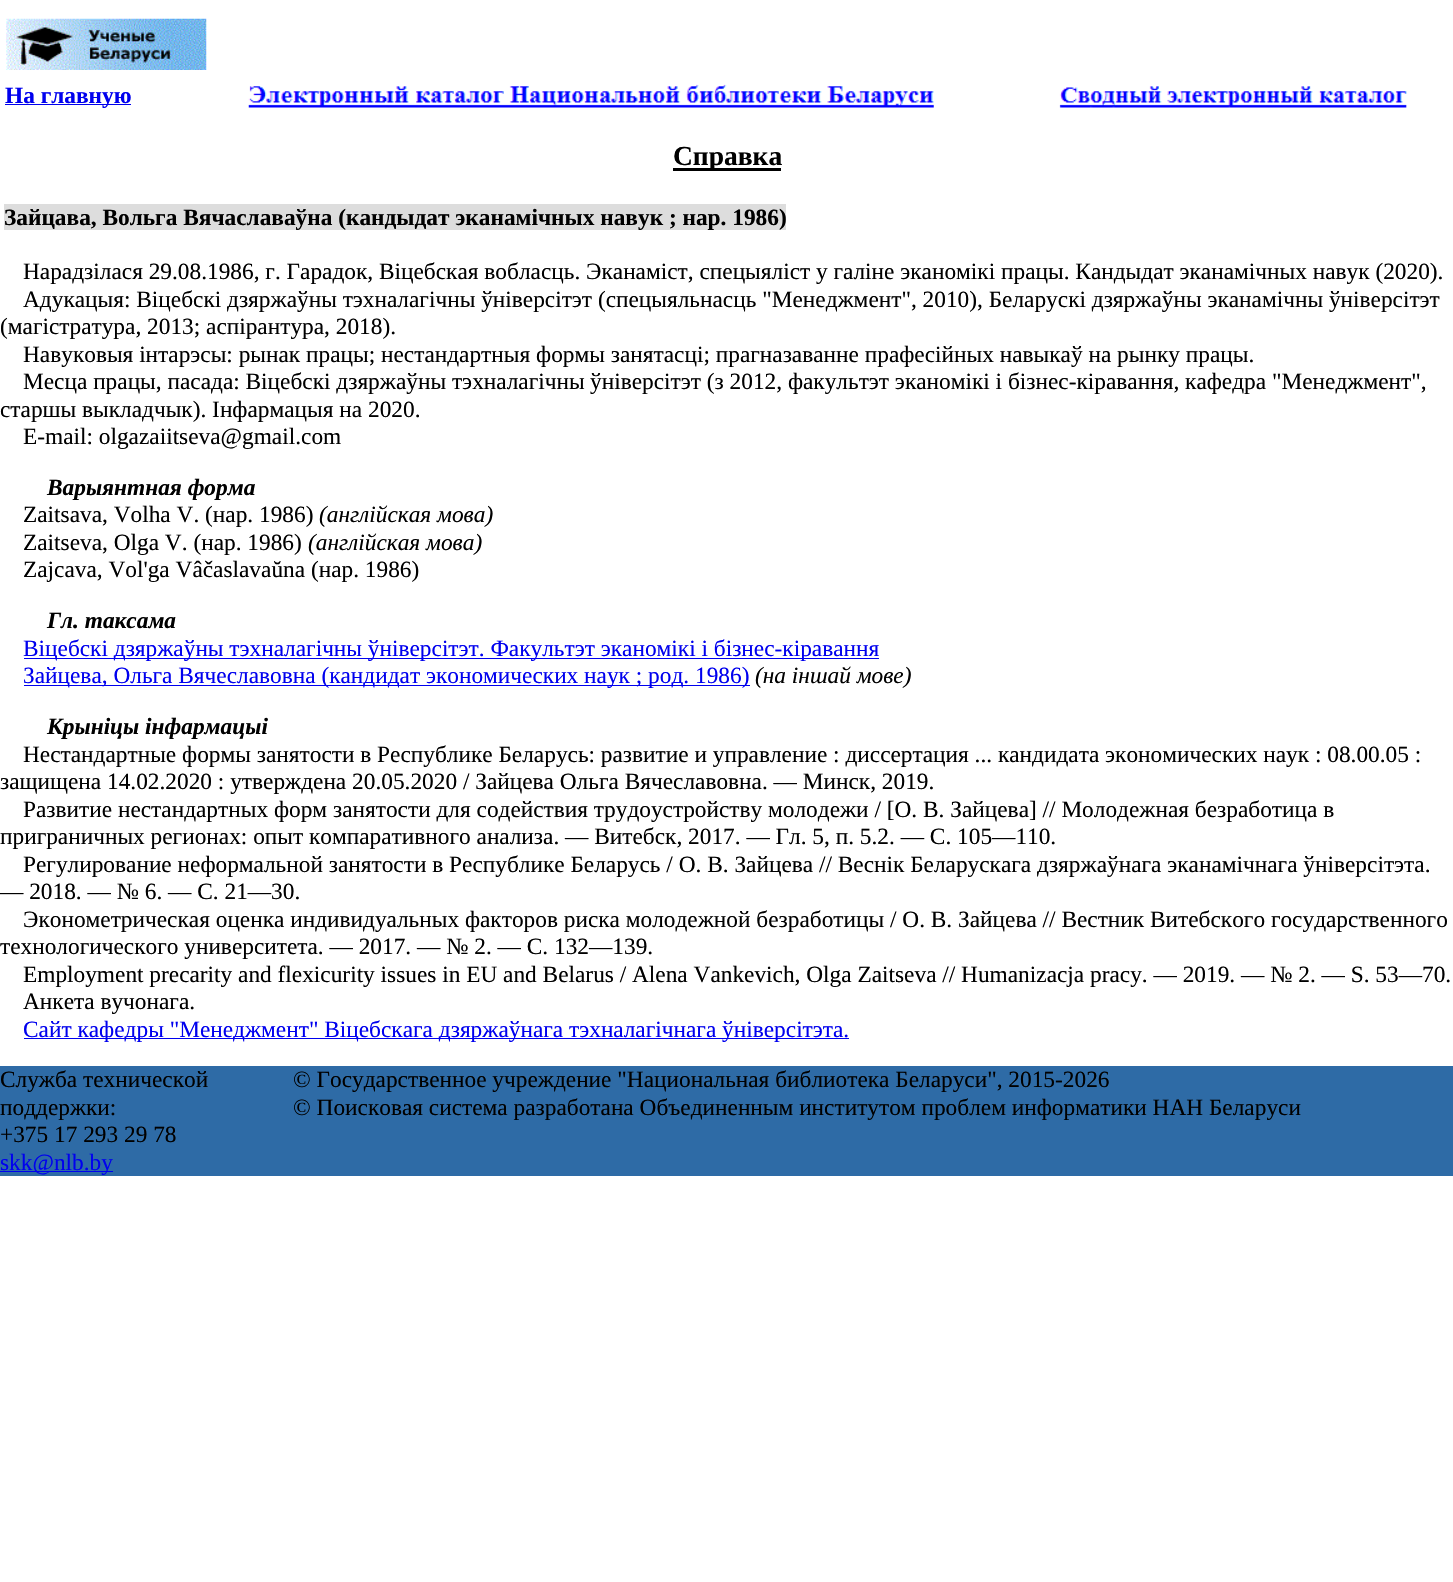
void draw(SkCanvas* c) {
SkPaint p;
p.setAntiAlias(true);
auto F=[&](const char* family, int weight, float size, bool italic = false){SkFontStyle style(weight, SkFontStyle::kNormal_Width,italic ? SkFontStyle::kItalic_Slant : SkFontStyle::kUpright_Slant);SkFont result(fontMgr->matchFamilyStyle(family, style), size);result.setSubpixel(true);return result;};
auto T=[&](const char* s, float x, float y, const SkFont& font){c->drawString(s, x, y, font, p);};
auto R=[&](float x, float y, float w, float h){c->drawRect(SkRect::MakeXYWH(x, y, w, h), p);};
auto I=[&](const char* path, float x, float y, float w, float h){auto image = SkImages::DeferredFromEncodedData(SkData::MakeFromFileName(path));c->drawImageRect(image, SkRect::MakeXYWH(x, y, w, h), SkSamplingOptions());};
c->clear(0xffffffff);
I("1.png",6,18,201,52);
p.setColor(0xff0000ee);
R(5,104,126,1);
auto f1 = F("Liberation Serif",700,23.33);
T("На главную",5,103,f1);
I("2.png",248,84,686,24);
I("3.png",1059,86,348,22);
p.setColor(0xff000000);
R(673,168,108,3);
auto f2 = F("Liberation Serif",700,27.5);
T("Справка",673,165,f2);
p.setColor(0xffdddddd);
R(4,204,782,26);
p.setColor(0xff000000);
T("Зайцава, Вольга Вячаславаўна (кандыдат эканамічных навук ; нар. 1986)",4,225,f1);
auto f3 = F("Liberation Serif",400,23.33);
T("Нарадзілася 29.08.1986, г. Гарадок, Віцебская вобласць. Эканаміст, спецыяліст у галіне эканомікі працы. Кандыдат эканамічных навук (2020).",23,279,f3);
T("Адукацыя: Віцебскі дзяржаўны тэхналагічны ўніверсітэт (спецыяльнасць \"Менеджмент\", 2010), Беларускі дзяржаўны эканамічны ўніверсітэт",23,307,f3);
T("(магістратура, 2013; аспірантура, 2018).",0,334,f3);
T("Навуковыя інтарэсы: рынак працы; нестандартныя формы занятасці; прагназаванне прафесійных навыкаў на рынку працы.",23,362,f3);
T("Месца працы, пасада: Віцебскі дзяржаўны тэхналагічны",23,389,f3);
T("ўніверсітэт (з 2012, факультэт эканомікі і бізнес-кіравання, кафедра \"Менеджмент\",",590,389,f3);
T("старшы выкладчык). Інфармацыя на 2020.",0,417,f3);
T("E-mail: olgazaiitseva@gmail.com",23,444,f3);
auto f4 = F("Liberation Serif",700,23.33,true);
T("Варыянтная форма",47,495,f4);
T("Zaitsava, Volha V. (нар. 1986)",23,522,f3);
auto f5 = F("Liberation Serif",400,23.33,true);
T("(англійская мова)",319,522,f5);
T("Zaitseva, Olga V. (нар. 1986)",23,550,f3);
T("(англійская мова)",308,550,f5);
T("Zajcava, Vol'ga Vâčaslavaŭna (нар. 1986)",23,577,f3);
T("Гл. таксама",47,628,f4);
p.setColor(0xff0000ee);
R(24,658,855,1);
T("Віцебскі дзяржаўны тэхналагічны ўніверсітэт. Факультэт эканомікі і бізнес-кіравання",23,656,f3);
R(24,685,726,1);
T("Зайцева, Ольга Вячеславовна (кандидат экономических наук ; род. 1986)",23,683,f3);
p.setColor(0xff000000);
T("(на іншай мове)",755,683,f5);
T("Крыніцы інфармацыі",47,734,f4);
T("Нестандартные формы занятости в Республике Беларусь: развитие и управление : диссертация ... кандидата экономических наук : 08.00.05 :",23,762,f3);
T("защищена 14.02.2020 : утверждена 20.05.2020 / Зайцева Ольга Вячеславовна. — Минск, 2019.",0,789,f3);
T("Развитие нестандартных форм занятости для содействия трудоустройству молодежи / [О. В. Зайцева] // Молодежная безработица в",23,817,f3);
T("приграничных регионах: опыт компаративного анализа. — Витебск, 2017. — Гл. 5, п. 5.2. — С. 105—110.",0,844,f3);
T("Регулирование неформальной занятости в Республике Беларусь / О. В. Зайцева // Веснік Беларускага дзяржаўнага эканамічнага ўніверсітэта.",23,872,f3);
T("— 2018. — № 6. — С. 21—30.",0,899,f3);
T("Эконометрическая оценка индивидуальных факторов риска молодежной безработицы / О. В. Зайцева // Вестник Витебского государственного",23,927,f3);
T("технологического университета. — 2017. — № 2. — С. 132—139.",0,954,f3);
T("Employment precarity and flexicurity issues in EU and Belarus / Alena Vankevich, Olga Zaitseva // Humanizacja pracy. — 2019. — № 2. — S. 53—70.",23,982,f3);
T("Анкета вучонага.",23,1009,f3);
p.setColor(0xff0000ee);
R(24,1038,825,1);
T("Сайт кафедры \"Менеджмент\" Віцебскага дзяржаўнага тэхналагічнага ўніверсітэта.",23,1037,f3);
p.setColor(0xff2e6ba6);
R(0,1066,1453,110);
p.setColor(0xff000000);
T("Служба технической",0,1087,f3);
T("поддержки:",0,1115,f3);
T("+375 17 293 29 78",0,1142,f3);
p.setColor(0xff0000ee);
R(0,1171,113,1);
T("skk@nlb.by",0,1170,f3);
p.setColor(0xff000000);
T("© Государственное учреждение \"Национальная библиотека Беларуси\", 2015-2026",293,1087,f3);
T("© Поисковая система разработана Объединенным институтом проблем информатики НАН Беларуси",293,1115,f3);
}
